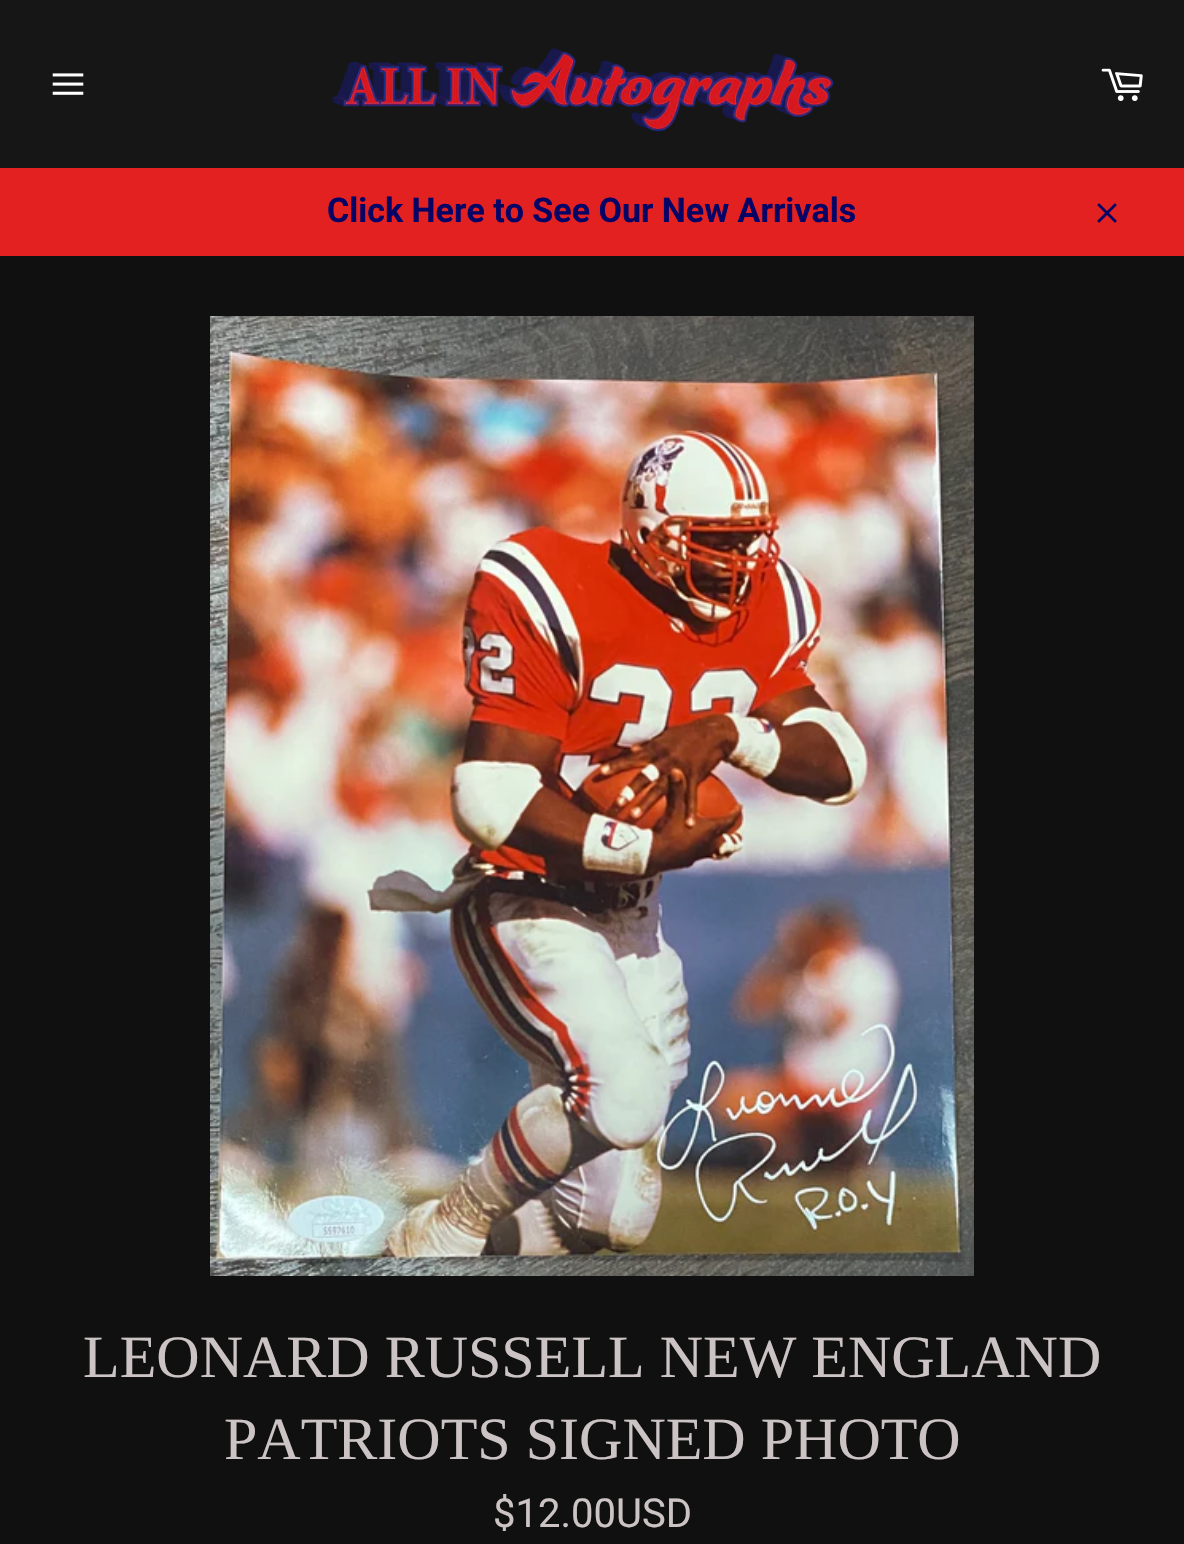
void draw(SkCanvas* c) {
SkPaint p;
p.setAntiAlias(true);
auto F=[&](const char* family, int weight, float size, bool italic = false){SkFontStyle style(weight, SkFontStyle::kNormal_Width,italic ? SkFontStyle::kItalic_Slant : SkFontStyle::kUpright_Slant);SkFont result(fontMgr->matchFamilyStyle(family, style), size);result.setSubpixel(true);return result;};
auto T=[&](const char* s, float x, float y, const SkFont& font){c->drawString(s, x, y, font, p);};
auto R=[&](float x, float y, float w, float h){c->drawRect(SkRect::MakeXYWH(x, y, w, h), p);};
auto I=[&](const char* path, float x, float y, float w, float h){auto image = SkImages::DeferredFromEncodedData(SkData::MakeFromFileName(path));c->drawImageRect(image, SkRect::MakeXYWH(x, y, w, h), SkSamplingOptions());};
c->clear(0xff161616);
I("1.png",52,73,32,22);
I("2.png",332,48,502,84);
I("3.png",1101,68,42,33);
p.setColor(0xffe22120);
R(0,168,1184,88);
auto f1 = F("Roboto",700,34);
p.setColor(0xff070466);
T("Click Here to See Our New Arrivals",327,222,f1);
I("4.png",1097,203,20,20);
p.setColor(0xff101010);
R(0,256,1184,1288);
I("5.png",210,316,764,960);
auto f2 = F("Liberation Serif",400,60);
p.setColor(0xffccc4c4);
T("LEONARD RUSSELL NEW ENGLAND",83,1377,f2);
T("PATRIOTS SIGNED PHOTO",224,1459,f2);
auto f3 = F("Roboto",400,40);
T("$12.00USD",493,1527,f3);
}
